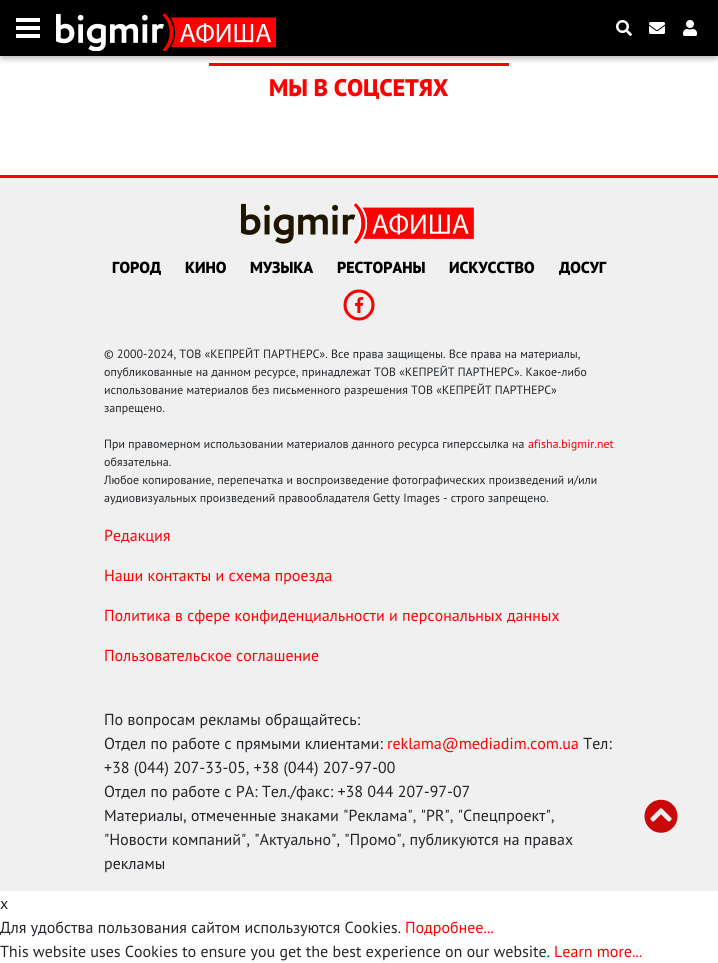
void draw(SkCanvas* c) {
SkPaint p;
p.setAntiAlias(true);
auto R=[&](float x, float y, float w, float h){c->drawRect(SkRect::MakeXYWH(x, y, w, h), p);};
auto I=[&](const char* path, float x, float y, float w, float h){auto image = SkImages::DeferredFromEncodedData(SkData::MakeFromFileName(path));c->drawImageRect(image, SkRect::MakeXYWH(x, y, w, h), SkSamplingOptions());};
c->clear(0xffffffff);
p.setColor(0xffff0000);
R(209,63,300,3);
p.setColor(0x40000000);
p.setMaskFilter(SkMaskFilter::MakeBlur(kNormal_SkBlurStyle, 2.5));
c->drawRect(SkRect::MakeXYWH(0,3,718,56),p);
p.setMaskFilter(nullptr);
p.setColor(0xff000000);
R(0,0,718,56);
p.setColor(0xffffffff);
R(16,26,24,4);
R(16,18,24,4);
R(16,34,24,4);
I("1.png",56,13,220,38);
I("2.png",616,20,16,16);
I("3.png",649,22,16,12);
I("4.png",683,20,14,16);
I("5.png",270,78,178,21);
p.setColor(0xfff0f0f0);
R(0,178,718,713);
p.setColor(0xffff0000);
R(0,175,718,3);
I("6.png",241,202,233,43);
I("7.png",112,261,49,14);
I("8.png",185,261,41,13);
I("9.png",250,261,64,13);
I("10.png",337,261,88,13);
I("11.png",449,261,86,13);
I("12.png",558,261,49,14);
I("13.png",343,289,32,32);
I("14.png",355,297,9,16);
I("15.png",104,347,476,14);
I("16.png",104,365,483,14);
I("17.png",104,383,453,14);
I("18.png",104,405,61,10);
I("19.png",105,439,419,12);
I("20.png",528,439,86,12);
I("21.png",104,457,67,10);
I("22.png",104,475,493,12);
I("23.png",104,493,445,12);
I("24.png",105,529,65,14);
I("25.png",105,569,227,16);
I("26.png",105,609,454,16);
I("27.png",105,649,214,13);
I("28.png",105,713,255,16);
I("29.png",104,737,279,16);
I("30.png",388,737,190,16);
I("31.png",583,737,29,13);
I("32.png",104,761,291,16);
I("33.png",104,785,366,16);
I("34.png",105,809,449,16);
I("35.png",105,833,468,16);
I("36.png",105,860,60,13);
I("37.png",644,799,34,34);
I("38.png",0,901,8,8);
I("39.png",0,921,401,16);
I("40.png",406,921,87,16);
I("41.png",0,945,550,16);
I("42.png",555,945,87,13);
}
